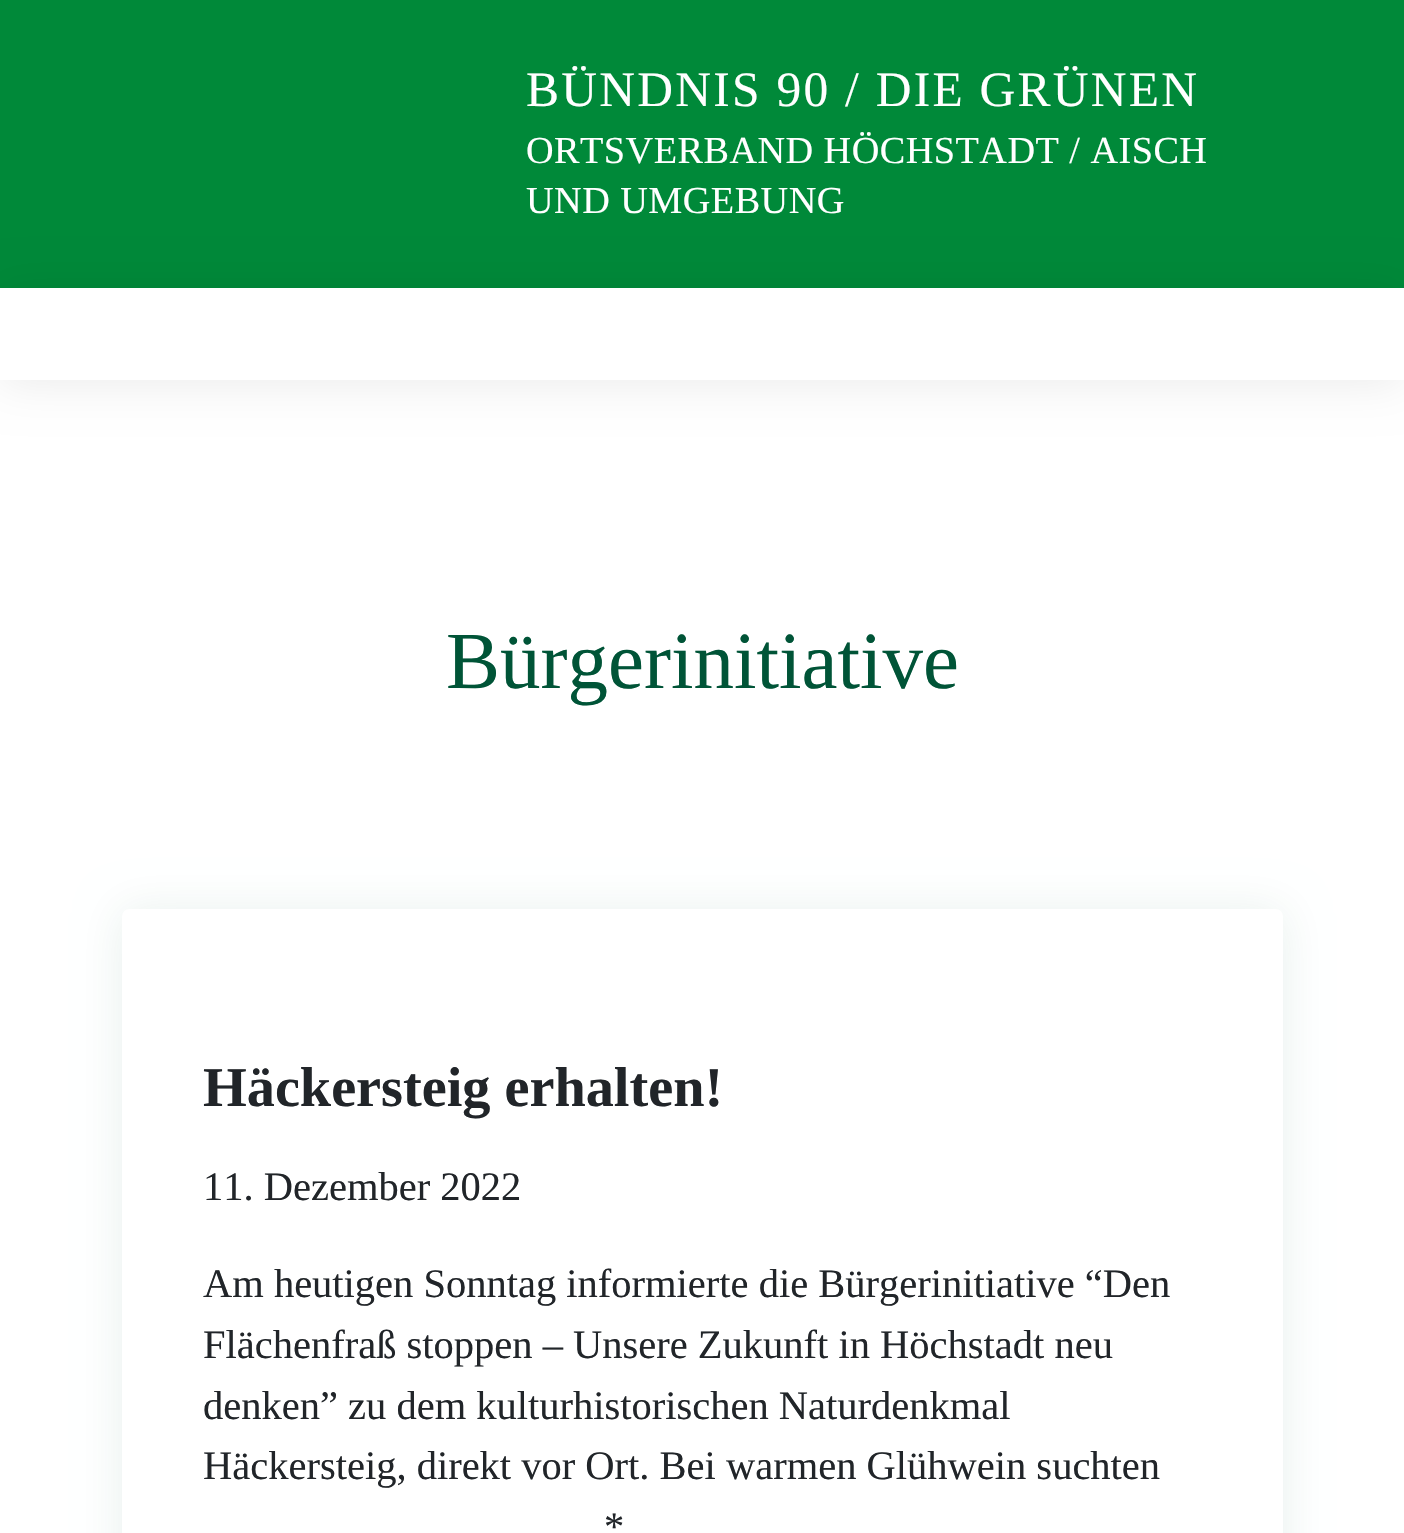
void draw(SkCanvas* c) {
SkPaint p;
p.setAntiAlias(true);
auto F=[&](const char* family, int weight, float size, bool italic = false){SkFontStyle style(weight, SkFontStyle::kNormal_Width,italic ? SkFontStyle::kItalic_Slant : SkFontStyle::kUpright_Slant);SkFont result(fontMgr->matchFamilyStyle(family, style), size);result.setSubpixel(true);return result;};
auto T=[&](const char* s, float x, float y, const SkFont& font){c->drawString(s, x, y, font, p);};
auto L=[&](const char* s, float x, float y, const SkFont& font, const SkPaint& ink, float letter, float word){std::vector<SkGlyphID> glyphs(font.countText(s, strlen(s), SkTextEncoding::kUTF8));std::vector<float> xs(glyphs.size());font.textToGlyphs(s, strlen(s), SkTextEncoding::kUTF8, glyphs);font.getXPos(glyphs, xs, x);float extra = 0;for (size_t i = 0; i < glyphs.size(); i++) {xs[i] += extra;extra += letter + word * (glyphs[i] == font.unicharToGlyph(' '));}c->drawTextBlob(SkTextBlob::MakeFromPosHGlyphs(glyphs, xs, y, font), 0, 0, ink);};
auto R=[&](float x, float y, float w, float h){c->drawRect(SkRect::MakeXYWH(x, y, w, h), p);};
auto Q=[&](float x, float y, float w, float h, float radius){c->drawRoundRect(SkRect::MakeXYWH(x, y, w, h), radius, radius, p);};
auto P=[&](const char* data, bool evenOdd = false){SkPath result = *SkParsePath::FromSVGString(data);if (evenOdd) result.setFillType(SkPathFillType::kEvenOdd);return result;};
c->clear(0xffffffff);
p.setColor(0xff008939);
R(0,0,1404,288);
auto f1 = F("Liberation Serif",400,49.5);
p.setColor(0xffffffff);
L("BÜNDNIS 90 / DIE GRÜNEN",526,106,f1,p,2.25,0);
auto f2 = F("Liberation Serif",400,38.25);
L("ORTSVERBAND HÖCHSTADT / AISCH",526,163,f2,p,.45,0);
L("UND UMGEBUNG",526,213,f2,p,.45,0);
c->save();
c->clipPath(P("M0 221h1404v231h-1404zm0 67h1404v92h-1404z",true),true);
p.setColor(0x14000000);
p.setMaskFilter(SkMaskFilter::MakeBlur(kNormal_SkBlurStyle, 22.5));
c->drawRect(SkRect::MakeXYWH(0,290,1404,93),p);
p.setMaskFilter(nullptr);
c->restore();
auto f3 = F("Liberation Serif",400,81);
p.setColor(0xff005437);
T("Bürgerinitiative",446,688,f3);
p.setColor(0x17005437);
p.setMaskFilter(SkMaskFilter::MakeBlur(kNormal_SkBlurStyle, 22.5));
c->drawRoundRect(SkRect::MakeXYWH(122,911,1161,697),7,7,p);
p.setMaskFilter(nullptr);
p.setColor(0xffffffff);
Q(122,909,1161,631,7);
auto f4 = F("Liberation Serif",700,56.25);
p.setColor(0xff212529);
T("Häckersteig erhalten!",203,1106,f4);
auto f5 = F("Liberation Serif",400,40.5);
T("11. Dezember 2022",203,1200,f5);
T("Am heutigen Sonntag informierte die Bürgerinitiative “Den",203,1297,f5);
T("Flächenfraß stoppen – Unsere Zukunft in Höchstadt neu",203,1358,f5);
T("denken” zu dem kulturhistorischen Naturdenkmal",203,1419,f5);
T("Häckersteig, direkt vor Ort. Bei warmen Glühwein suchten",203,1479,f5);
T("*",604,1540,f5);
}
